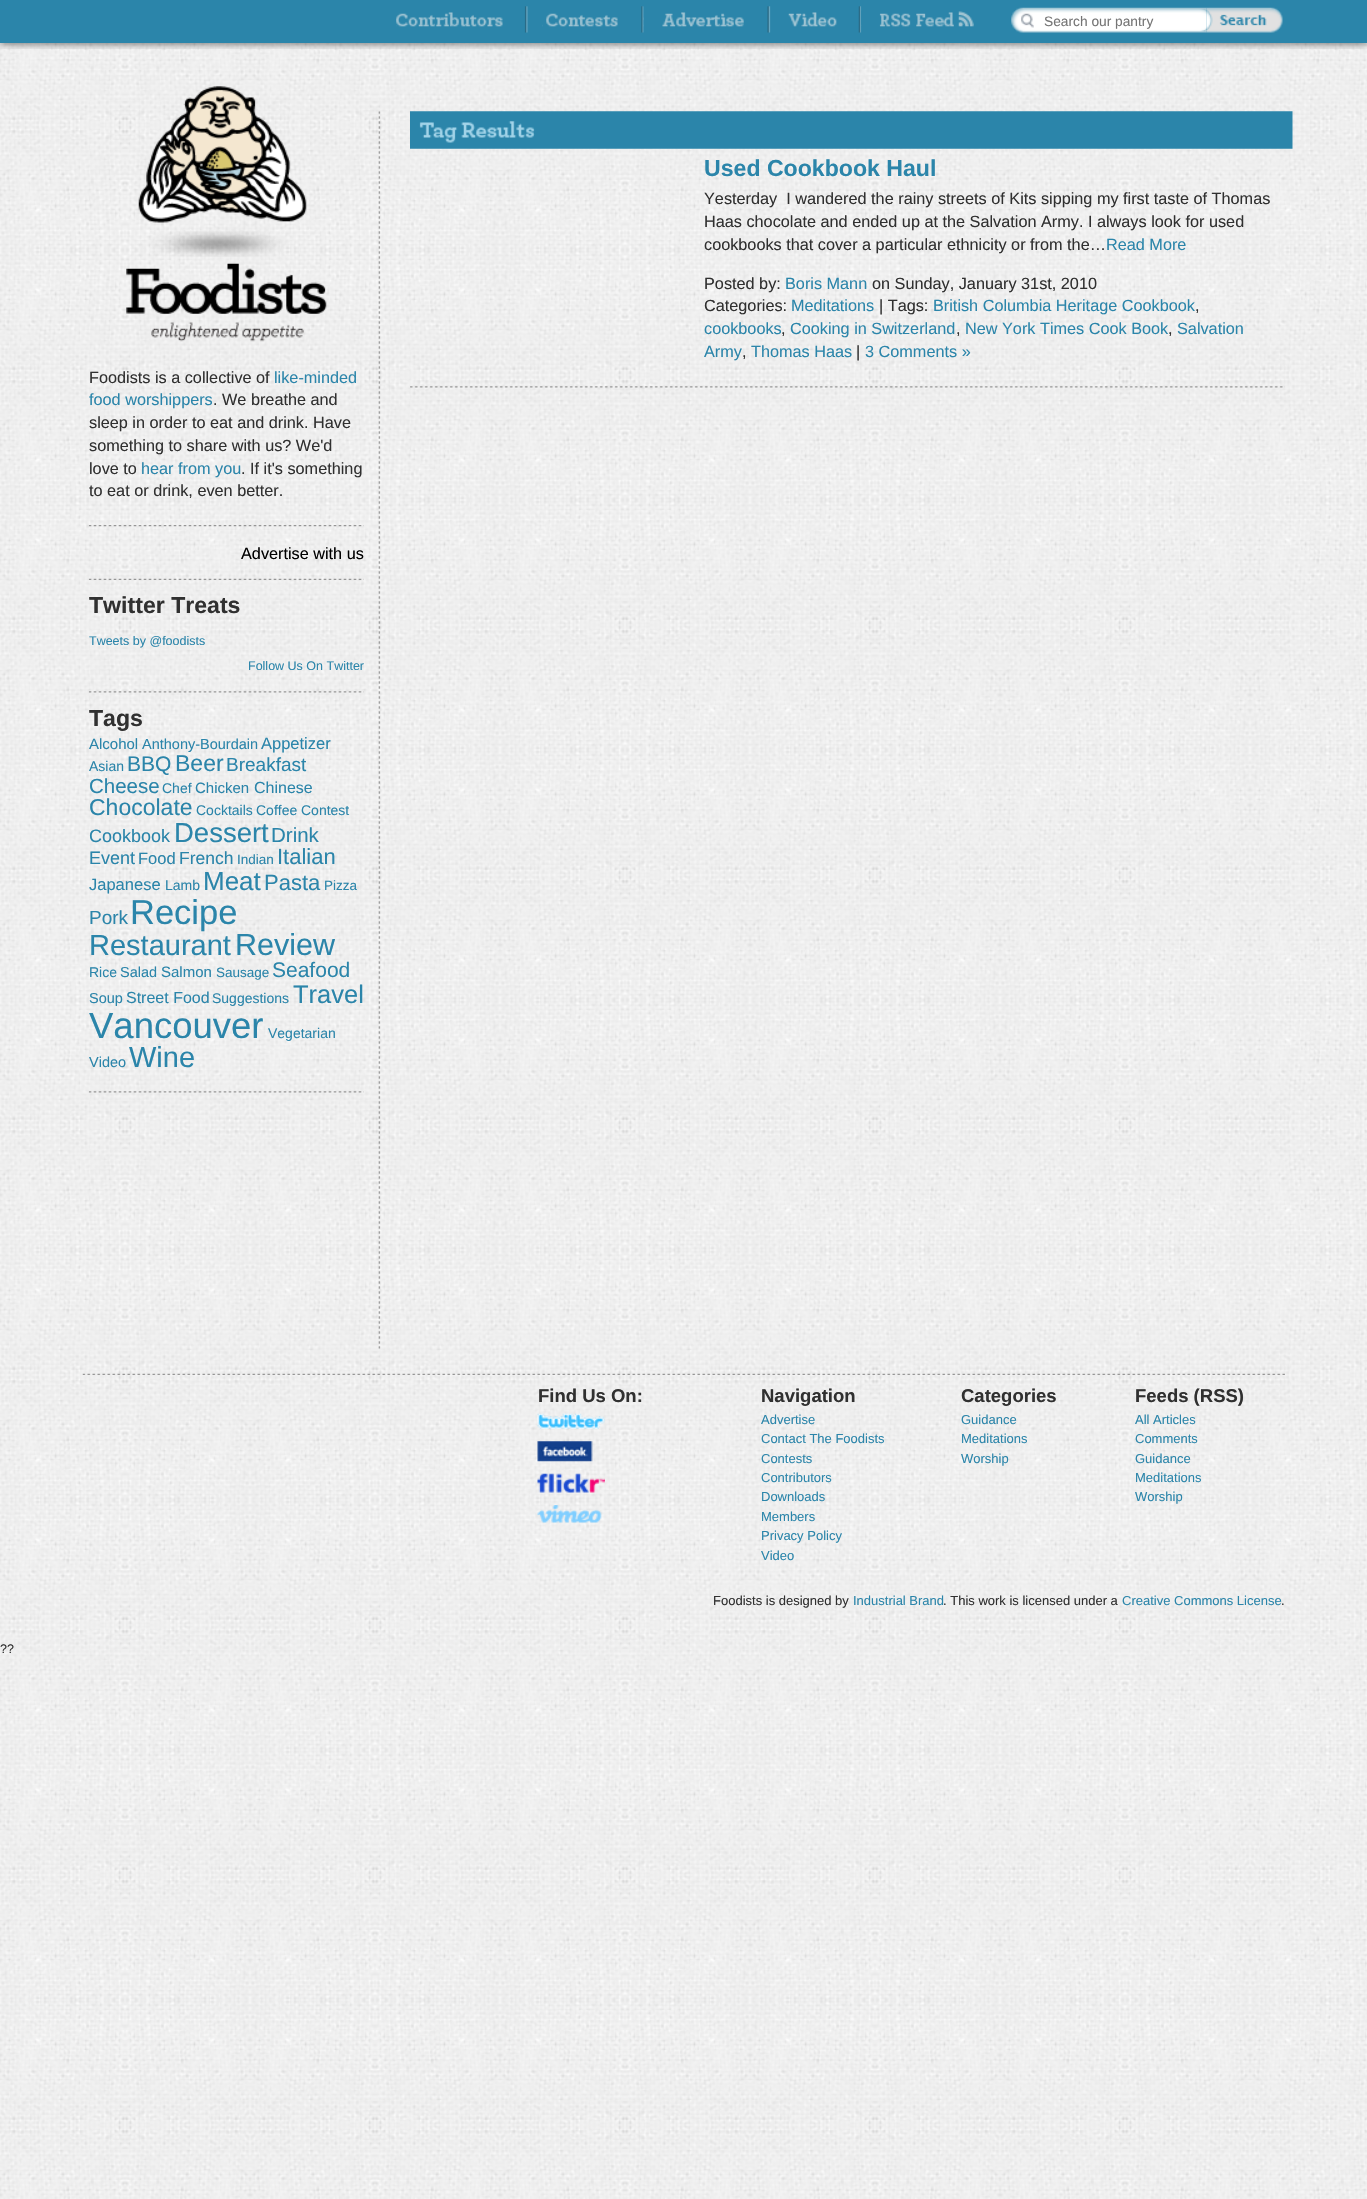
void draw(SkCanvas* c) {
SkPaint p;
p.setAntiAlias(true);
auto F=[&](const char* family, int weight, float size, bool italic = false){SkFontStyle style(weight, SkFontStyle::kNormal_Width,italic ? SkFontStyle::kItalic_Slant : SkFontStyle::kUpright_Slant);SkFont result(fontMgr->matchFamilyStyle(family, style), size);result.setSubpixel(true);return result;};
auto T=[&](const char* s, float x, float y, const SkFont& font){c->drawString(s, x, y, font, p);};
auto R=[&](float x, float y, float w, float h){c->drawRect(SkRect::MakeXYWH(x, y, w, h), p);};
auto I=[&](const char* path, float x, float y, float w, float h){auto image = SkImages::DeferredFromEncodedData(SkData::MakeFromFileName(path));c->drawImageRect(image, SkRect::MakeXYWH(x, y, w, h), SkSamplingOptions());};
c->clear(0xffffffff);
I("1.png",0,43,1367,2156);
c->save();
c->clipRect(SkRect::MakeXYWH(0,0,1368,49));
p.setColor(0xff555555);
p.setMaskFilter(SkMaskFilter::MakeBlur(kNormal_SkBlurStyle, 4.5));
c->drawRect(SkRect::MakeXYWH(0,-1,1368,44),p);
p.setMaskFilter(nullptr);
c->restore();
p.setColor(0xff2b85aa);
R(0,0,1367,43);
I("2.png",396,12,1,15);
I("3.png",396,6,132,27);
I("4.png",542,12,102,15);
I("5.png",542,6,102,27);
I("6.png",643,6,1,27);
I("7.png",643,6,128,27);
I("8.png",780,6,82,27);
I("9.png",861,6,113,27);
I("10.png",861,11,113,16);
I("11.png",1011,7,196,26);
auto f1 = F("Liberation Sans",400,13.75);
p.setColor(0xff757575);
T("Search our pantry",1044,26,f1);
I("12.png",1206,7,77,26);
I("13.png",378,111,3,1238);
I("14.png",410,111,883,38);
auto f2 = F("Liberation Sans",700,23.1);
p.setColor(0xff2b85aa);
T("Used Cookbook Haul",704,176,f2);
auto f3 = F("Liberation Sans",400,16.25);
p.setColor(0xff303030);
T("Yesterday  I wandered the rainy streets of Kits sipping my first taste of Thomas",704,204,f3);
T("Haas chocolate and ended up at the Salvation Army. I always look for used",704,227,f3);
T("cookbooks that cover a particular ethnicity or from the…",704,250,f3);
p.setColor(0xff2b85aa);
T("Read More",1106,250,f3);
p.setColor(0xff303030);
T("Posted by:",704,289,f3);
p.setColor(0xff2b85aa);
T("Boris Mann",785,289,f3);
p.setColor(0xff303030);
T("on Sunday, January 31st, 2010",872,289,f3);
T("Categories:",704,311,f3);
p.setColor(0xff2b85aa);
T("Meditations",791,311,f3);
p.setColor(0xff303030);
T("| Tags:",879,311,f3);
p.setColor(0xff2b85aa);
T("British Columbia Heritage Cookbook",933,311,f3);
p.setColor(0xff303030);
T(",",1195,311,f3);
p.setColor(0xff2b85aa);
T("cookbooks",704,334,f3);
p.setColor(0xff303030);
T(",",781,334,f3);
p.setColor(0xff2b85aa);
T("Cooking in Switzerland",790,334,f3);
p.setColor(0xff303030);
T(",",956,334,f3);
p.setColor(0xff2b85aa);
T("New York Times Cook Book",965,334,f3);
p.setColor(0xff303030);
T(",",1168,334,f3);
p.setColor(0xff2b85aa);
T("Salvation",1177,334,f3);
T("Army",704,357,f3);
p.setColor(0xff303030);
T(",",742,357,f3);
p.setColor(0xff2b85aa);
T("Thomas Haas",751,357,f3);
p.setColor(0xff303030);
T("|",856,357,f3);
p.setColor(0xff2b85aa);
T("3 Comments »",865,357,f3);
I("15.png",410,386,875,2);
I("16.png",138,86,169,171);
I("17.png",126,263,201,79);
p.setColor(0xff303030);
T("Foodists is a collective of",89,383,f3);
p.setColor(0xff2b85aa);
T("like-minded",274,383,f3);
T("food worshippers",89,405,f3);
p.setColor(0xff303030);
T(". We breathe and",213,405,f3);
T("sleep in order to eat and drink. Have",89,428,f3);
T("something to share with us? We'd",89,451,f3);
T("love to",89,474,f3);
p.setColor(0xff2b85aa);
T("hear from you",141,474,f3);
p.setColor(0xff303030);
T(". If it's something",241,474,f3);
T("to eat or drink, even better.",89,496,f3);
I("18.png",88,525,276,2);
p.setColor(0xff000000);
T("Advertise with us",241,559,f3);
I("19.png",88,578,276,2);
p.setColor(0xff303030);
T("Twitter Treats",89,613,f2);
auto f4 = F("Liberation Sans",400,12.5);
p.setColor(0xff2b85aa);
T("Tweets by @foodists",89,645,f4);
T("Follow Us On Twitter",248,670,f4);
I("20.png",88,691,276,2);
p.setColor(0xff303030);
T("Tags",89,726,f2);
auto f5 = F("Liberation Sans",400,15);
p.setColor(0xff2b85aa);
T("Alcohol",89,749,f5);
auto f6 = F("Liberation Sans",400,14.5);
T("Anthony-Bourdain",142,749,f6);
auto f7 = F("Liberation Sans",400,16.5);
T("Appetizer",261,749,f7);
auto f8 = F("Liberation Sans",400,14);
T("Asian",89,771,f8);
auto f9 = F("Liberation Sans",400,21);
T("BBQ",127,771,f9);
auto f10 = F("Liberation Sans",400,23);
T("Beer",175,771,f10);
auto f11 = F("Liberation Sans",400,19);
T("Breakfast",226,771,f11);
auto f12 = F("Liberation Sans",400,20.5);
T("Cheese",89,793,f12);
T("Chef",162,793,f8);
T("Chicken",195,793,f5);
auto f13 = F("Liberation Sans",400,16);
T("Chinese",254,793,f13);
T("Chocolate",89,815,f10);
T("Cocktails",196,815,f8);
T("Coffee",256,815,f8);
T("Contest",301,815,f8);
auto f14 = F("Liberation Sans",400,18);
T("Cookbook",89,842,f14);
auto f15 = F("Liberation Sans",400,27.5);
T("Dessert",174,842,f15);
T("Drink",271,842,f12);
T("Event",89,864,f14);
T("Food",138,864,f7);
auto f16 = F("Liberation Sans",400,17.5);
T("French",179,864,f16);
auto f17 = F("Liberation Sans",400,13.5);
T("Indian",237,864,f17);
auto f18 = F("Liberation Sans",400,22);
T("Italian",277,864,f18);
T("Japanese",89,890,f7);
T("Lamb",165,890,f8);
auto f19 = F("Liberation Sans",400,26);
T("Meat",203,890,f19);
T("Pasta",264,890,f18);
T("Pizza",324,890,f17);
T("Pork",89,924,f11);
auto f20 = F("Liberation Sans",400,34.5);
T("Recipe",130,924,f20);
auto f21 = F("Liberation Sans",400,29);
T("Restaurant",89,955,f21);
auto f22 = F("Liberation Sans",400,30.5);
T("Review",235,955,f22);
T("Rice",89,977,f8);
T("Salad",120,977,f6);
T("Salmon",161,977,f5);
T("Sausage",216,977,f17);
T("Seafood",272,977,f9);
T("Soup",89,1003,f6);
T("Street Food",126,1003,f13);
T("Suggestions",212,1003,f8);
auto f23 = F("Liberation Sans",400,25.5);
T("Travel",293,1003,f23);
auto f24 = F("Liberation Sans",400,36.5);
T("Vancouver",89,1038,f24);
T("Vegetarian",268,1038,f8);
T("Video",89,1067,f6);
T("Wine",129,1067,f21);
I("21.png",88,1091,276,2);
I("22.png",82,1373,1203,2);
auto f25 = F("Liberation Sans",700,18.5);
p.setColor(0xff303030);
T("Find Us On:",538,1402,f25);
I("23.png",537,1413,68,16);
I("24.png",537,1441,56,21);
I("25.png",537,1473,68,20);
I("26.png",537,1505,65,18);
T("Navigation",761,1402,f25);
auto f26 = F("Liberation Sans",400,13);
p.setColor(0xff2b85aa);
T("Advertise",761,1424,f26);
T("Contact The Foodists",761,1443,f26);
T("Contests",761,1463,f26);
T("Contributors",761,1482,f26);
T("Downloads",761,1501,f26);
T("Members",761,1521,f26);
T("Privacy Policy",761,1540,f26);
T("Video",761,1560,f26);
p.setColor(0xff303030);
T("Categories",961,1402,f25);
p.setColor(0xff2b85aa);
T("Guidance",961,1424,f26);
T("Meditations",961,1443,f26);
T("Worship",961,1463,f26);
p.setColor(0xff303030);
T("Feeds (RSS)",1135,1402,f25);
p.setColor(0xff2b85aa);
T("All Articles",1135,1424,f26);
T("Comments",1135,1443,f26);
T("Guidance",1135,1463,f26);
T("Meditations",1135,1482,f26);
T("Worship",1135,1501,f26);
p.setColor(0xff303030);
T("Foodists is designed by",713,1605,f26);
p.setColor(0xff2b85aa);
T("Industrial Brand",853,1605,f26);
p.setColor(0xff303030);
T(". This work is licensed under a",943,1605,f26);
p.setColor(0xff2b85aa);
T("Creative Commons License",1122,1605,f26);
p.setColor(0xff303030);
T(".",1281,1605,f26);
T("?\077",0,1653,f4);
}
